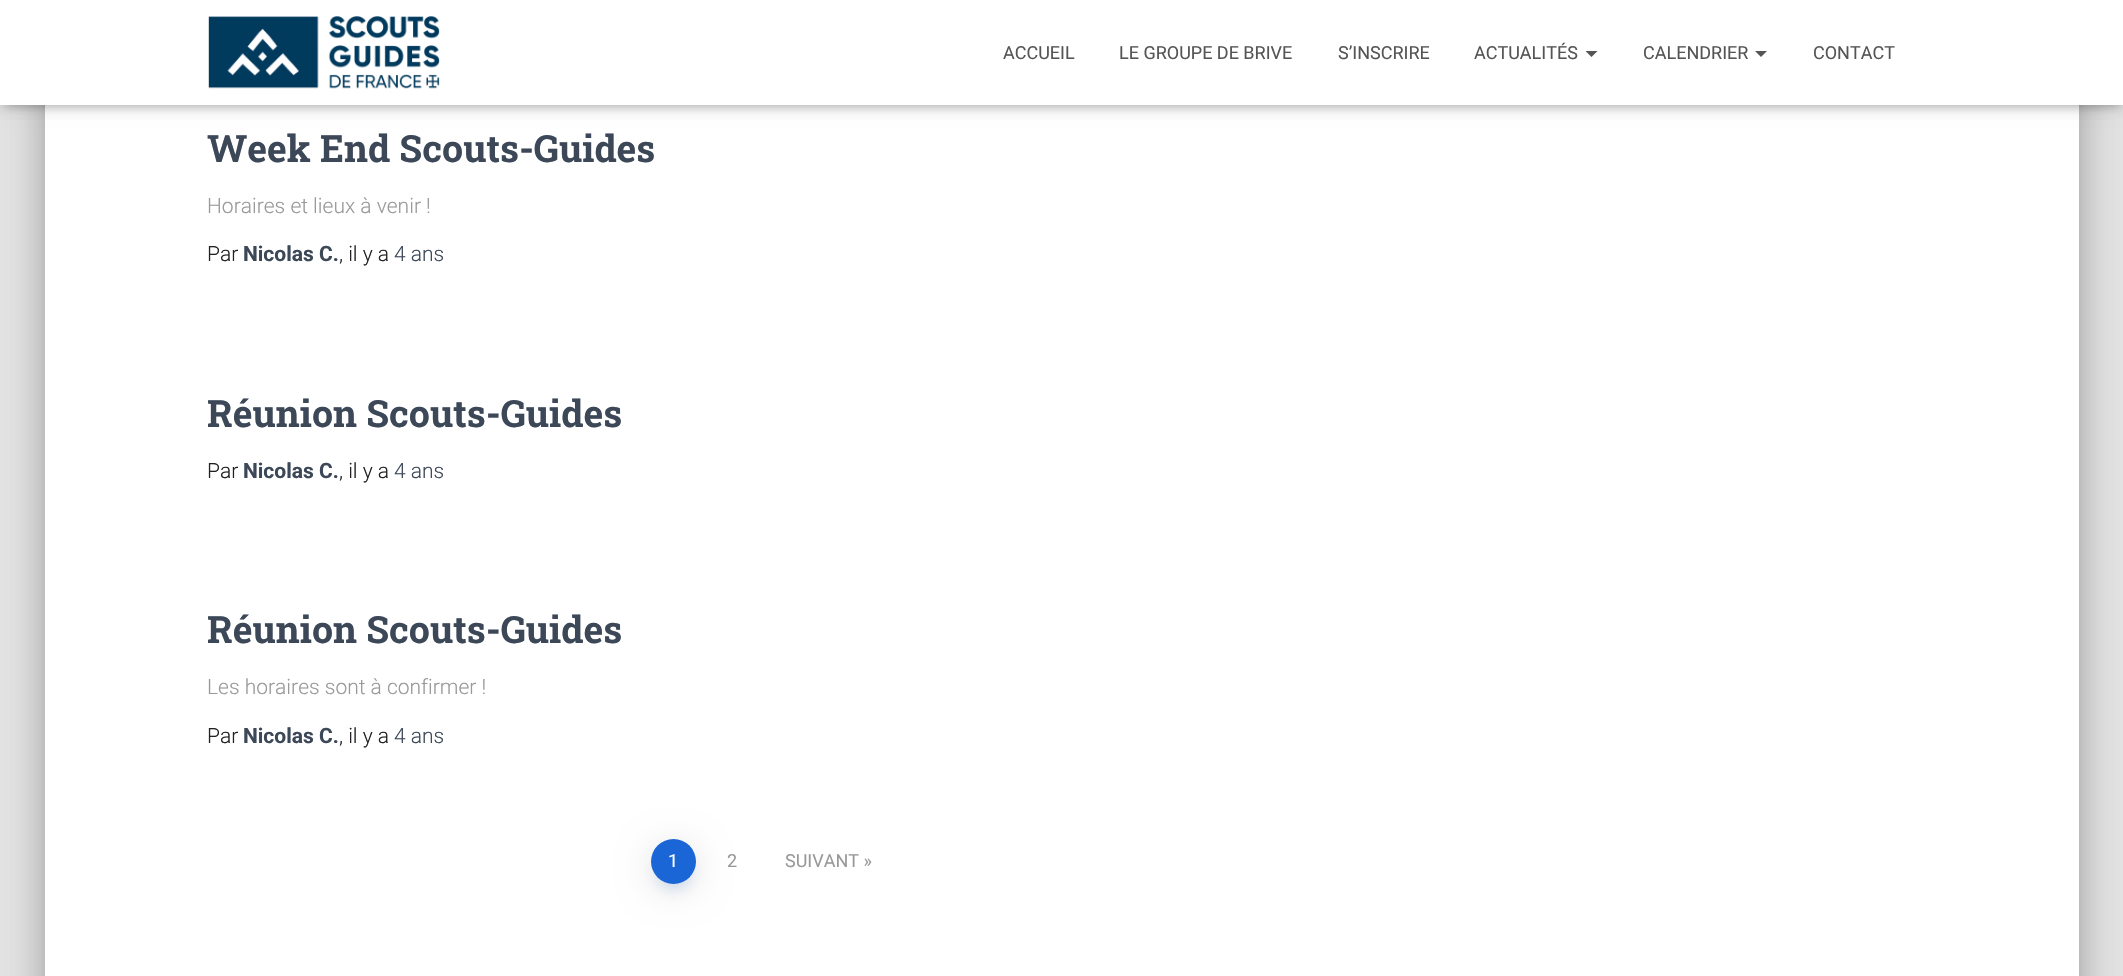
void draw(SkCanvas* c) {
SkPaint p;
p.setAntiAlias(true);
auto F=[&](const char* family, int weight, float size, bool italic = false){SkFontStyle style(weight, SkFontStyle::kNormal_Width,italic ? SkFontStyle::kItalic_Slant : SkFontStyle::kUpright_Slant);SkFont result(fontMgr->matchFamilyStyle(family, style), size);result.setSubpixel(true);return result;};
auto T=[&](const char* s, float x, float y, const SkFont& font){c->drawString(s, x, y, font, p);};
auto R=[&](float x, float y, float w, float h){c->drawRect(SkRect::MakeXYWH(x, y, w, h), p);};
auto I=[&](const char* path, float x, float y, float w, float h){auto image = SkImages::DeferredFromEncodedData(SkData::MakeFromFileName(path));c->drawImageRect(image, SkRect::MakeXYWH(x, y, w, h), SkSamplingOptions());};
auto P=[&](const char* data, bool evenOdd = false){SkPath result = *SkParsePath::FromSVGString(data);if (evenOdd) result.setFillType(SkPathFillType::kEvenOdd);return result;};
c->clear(0xffe5e5e5);
p.setColor(0x33000000);
p.setMaskFilter(SkMaskFilter::MakeBlur(kNormal_SkBlurStyle, 7.5));
c->drawRoundRect(SkRect::MakeXYWH(53,-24,2019,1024),1.5,1.5,p);
p.setMaskFilter(nullptr);
p.setColor(0x1f000000);
p.setMaskFilter(SkMaskFilter::MakeBlur(kNormal_SkBlurStyle, 22.5));
c->drawRoundRect(SkRect::MakeXYWH(38,-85,2049,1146),17,17,p);
p.setMaskFilter(nullptr);
p.setColor(0x24000000);
p.setMaskFilter(SkMaskFilter::MakeBlur(kNormal_SkBlurStyle, 18));
c->drawRoundRect(SkRect::MakeXYWH(42,-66,2040,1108),12,12,p);
p.setMaskFilter(nullptr);
p.setColor(0xffffffff);
R(45,105,2034,871);
p.setColor(0x1a000000);
p.setMaskFilter(SkMaskFilter::MakeBlur(kNormal_SkBlurStyle, 4));
c->drawRect(SkRect::MakeXYWH(3,9,2118,99),p);
p.setMaskFilter(nullptr);
p.setColor(0x1f000000);
p.setMaskFilter(SkMaskFilter::MakeBlur(kNormal_SkBlurStyle, 7.5));
c->drawRect(SkRect::MakeXYWH(0,2,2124,105),p);
p.setMaskFilter(nullptr);
p.setColor(0x6b000000);
p.setMaskFilter(SkMaskFilter::MakeBlur(kNormal_SkBlurStyle, 7.5));
c->drawRect(SkRect::MakeXYWH(9,11,2106,87),p);
p.setMaskFilter(nullptr);
p.setColor(0xffffffff);
R(0,0,2123,105);
I("1.png",208,16,232,73);
auto f1 = F("Roboto",400,18);
p.setColor(0xff555555);
T("ACCUEIL",1003,59,f1);
T("LE GROUPE DE BRIVE",1119,59,f1);
T("S’INSCRIRE",1338,59,f1);
T("ACTUALITÉS",1474,59,f1);
c->drawPath(P("M1585.5 51h12l-6 6z"),p);
T("CALENDRIER",1643,59,f1);
c->drawPath(P("M1755 51h12l-6 6z"),p);
T("CONTACT",1813,59,f1);
auto f2 = F("Roboto Slab",700,37.5);
p.setColor(0xff3c4858);
T("Week End Scouts-Guides",207,162,f2);
auto f3 = F("Roboto",300,21);
p.setColor(0xff999999);
T("Horaires et lieux à venir !",207,213,f3);
p.setColor(0xff212121);
T("Par",207,261,f3);
auto f4 = F("Roboto",700,21);
p.setColor(0xff3c4858);
T("Nicolas C.",243,261,f4);
p.setColor(0xff212121);
T(", il y a",339,261,f3);
p.setColor(0xff3c4858);
T("4 ans",394,261,f3);
T("Réunion Scouts-Guides",207,427,f2);
p.setColor(0xff212121);
T("Par",207,478,f3);
p.setColor(0xff3c4858);
T("Nicolas C.",243,478,f4);
p.setColor(0xff212121);
T(", il y a",339,478,f3);
p.setColor(0xff3c4858);
T("4 ans",394,478,f3);
T("Réunion Scouts-Guides",207,643,f2);
p.setColor(0xff999999);
T("Les horaires sont à confirmer !",207,694,f3);
p.setColor(0xff212121);
T("Par",207,743,f3);
p.setColor(0xff3c4858);
T("Nicolas C.",243,743,f4);
p.setColor(0xff212121);
T(", il y a",339,743,f3);
p.setColor(0xff3c4858);
T("4 ans",394,743,f3);
p.setColor(0x331b66d6);
p.setMaskFilter(SkMaskFilter::MakeBlur(kNormal_SkBlurStyle, 7.5));
c->drawRoundRect(SkRect::MakeXYWH(659,858,30,30),15,15,p);
p.setMaskFilter(nullptr);
p.setColor(0x1f000000);
p.setMaskFilter(SkMaskFilter::MakeBlur(kNormal_SkBlurStyle, 17));
c->drawRoundRect(SkRect::MakeXYWH(651,845,45,45),22.5,22.5,p);
p.setMaskFilter(nullptr);
p.setColor(0xff1b66d6);
c->drawCircle(673.5,861.5,22.5,p);
p.setColor(0xffffffff);
T("1",668,867,f1);
p.setColor(0xff999999);
T("2",727,867,f1);
T("SUIVANT »",785,867,f1);
}
